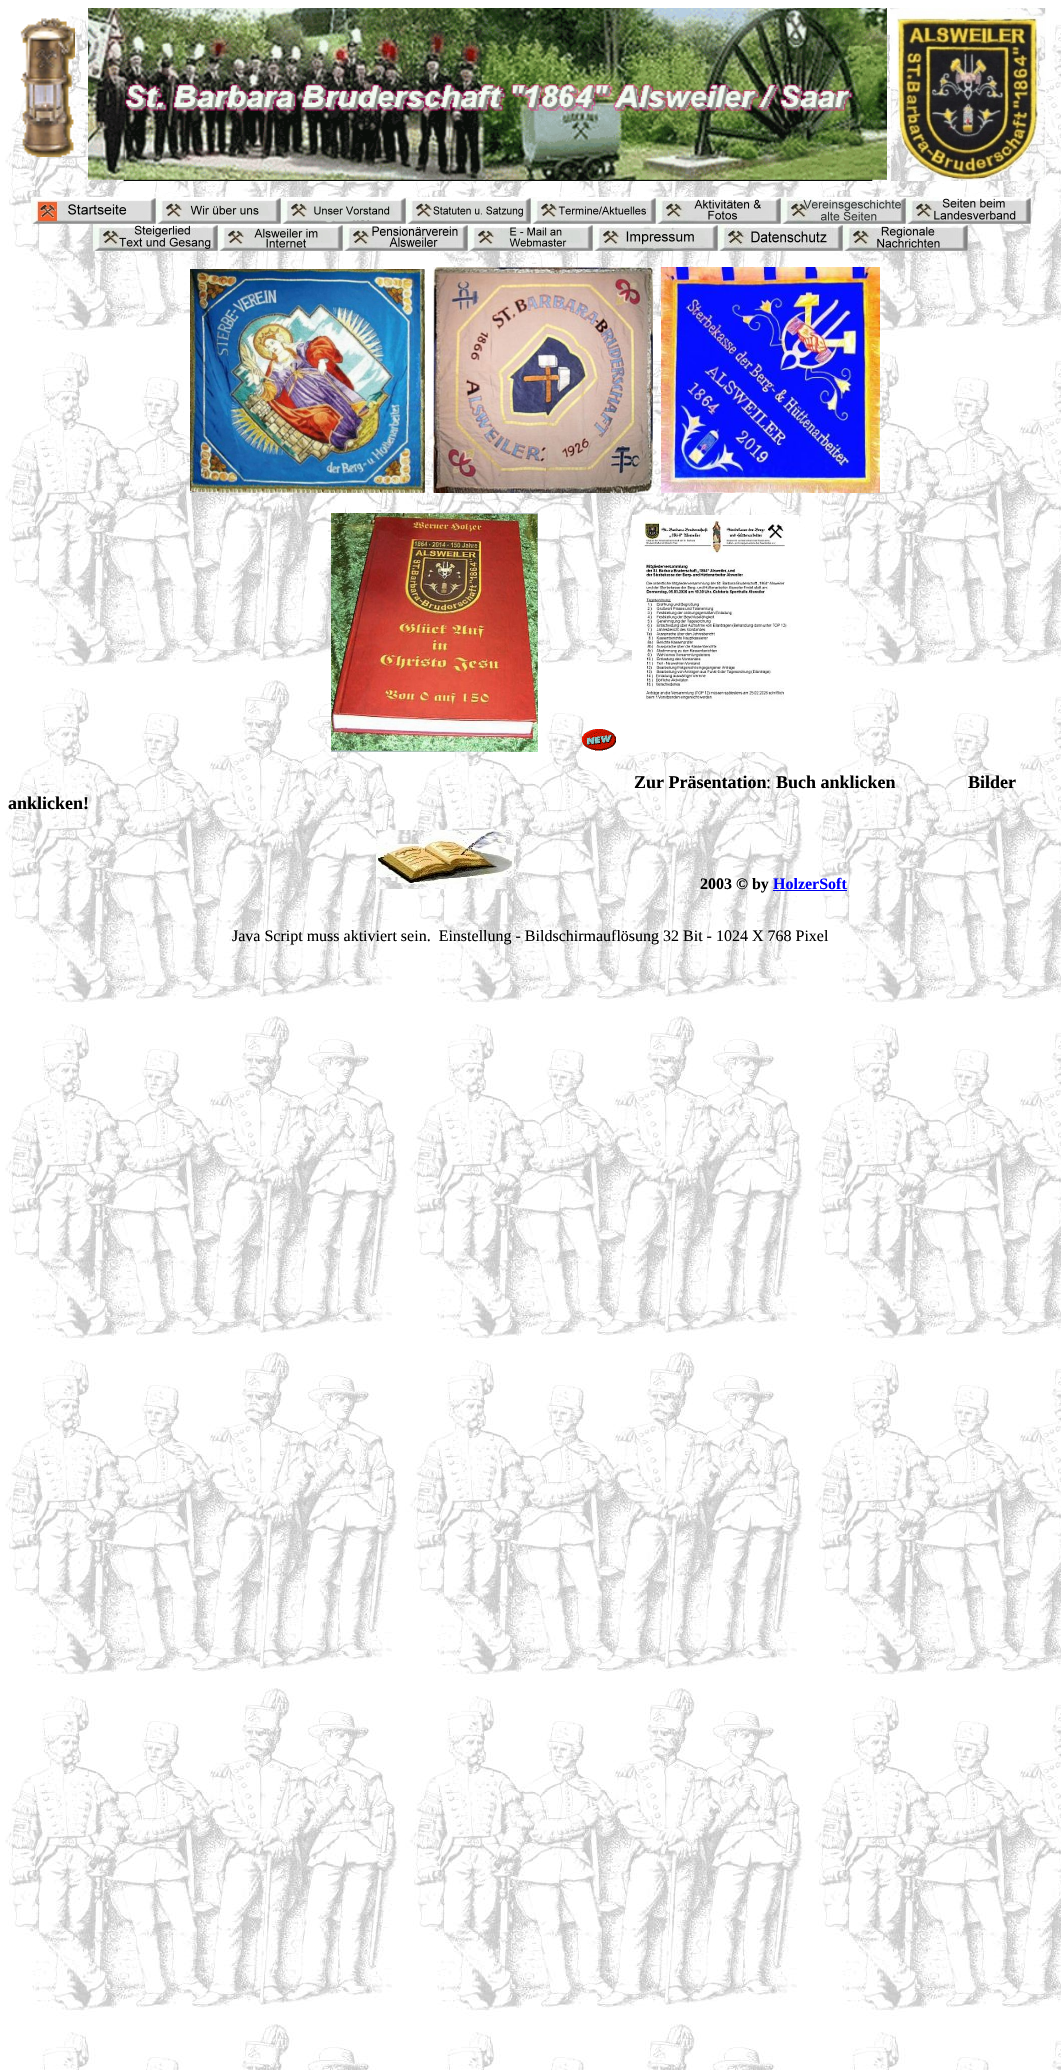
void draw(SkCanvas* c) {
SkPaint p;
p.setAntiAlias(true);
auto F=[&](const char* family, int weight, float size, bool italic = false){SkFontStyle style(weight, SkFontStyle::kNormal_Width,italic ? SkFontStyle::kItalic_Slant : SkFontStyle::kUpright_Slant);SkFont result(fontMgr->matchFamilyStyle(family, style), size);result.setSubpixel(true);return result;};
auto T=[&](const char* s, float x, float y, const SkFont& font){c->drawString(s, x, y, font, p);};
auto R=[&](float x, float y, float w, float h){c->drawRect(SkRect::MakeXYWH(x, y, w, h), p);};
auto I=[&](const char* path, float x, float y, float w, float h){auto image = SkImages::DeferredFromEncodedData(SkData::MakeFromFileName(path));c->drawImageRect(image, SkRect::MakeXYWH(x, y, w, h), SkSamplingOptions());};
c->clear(0xffffffff);
I("1.png",5,8,1056,2062);
I("2.png",20,18,55,139);
I("3.png",88,8,799,173);
I("4.png",890,8,156,173);
I("5.png",31,197,125,27);
I("6.png",156,197,125,27);
I("7.png",281,197,125,27);
I("8.png",406,197,125,27);
I("9.png",531,197,125,27);
I("10.png",656,197,125,27);
I("11.png",781,197,125,27);
I("12.png",906,197,125,27);
I("13.png",93,224,125,27);
I("14.png",218,224,125,27);
I("15.png",343,224,125,27);
I("16.png",468,224,125,27);
I("17.png",593,224,125,27);
I("18.png",718,224,125,27);
I("19.png",843,224,125,27);
I("20.png",190,269,235,224);
I("21.png",433,267,220,226);
I("22.png",661,267,219,226);
I("23.png",331,513,207,239);
I("24.png",581,729,35,22);
I("25.png",632,515,167,237);
auto f1 = F("Liberation Serif",700,18);
p.setColor(0xff000000);
T("Zur Präsentation",634,788,f1);
auto f2 = F("Liberation Serif",400,18);
T(":",766,788,f2);
T("Buch anklicken",776,788,f1);
T("Bilder",968,788,f1);
T("anklicken!",8,809,f1);
I("26.png",376,830,140,59);
auto f3 = F("Liberation Serif",700,16);
T("2003 © by",700,889,f3);
p.setColor(0xff0000ff);
T("HolzerSoft",773,889,f3);
p.setColor(0xff0000ee);
R(773,890,74,1);
auto f4 = F("Liberation Serif",400,16);
p.setColor(0xff000000);
T("Java Script muss aktiviert sein.  Einstellung - Bildschirmauflösung 32 Bit - 1024 X 768 Pixel",232,941,f4);
}
